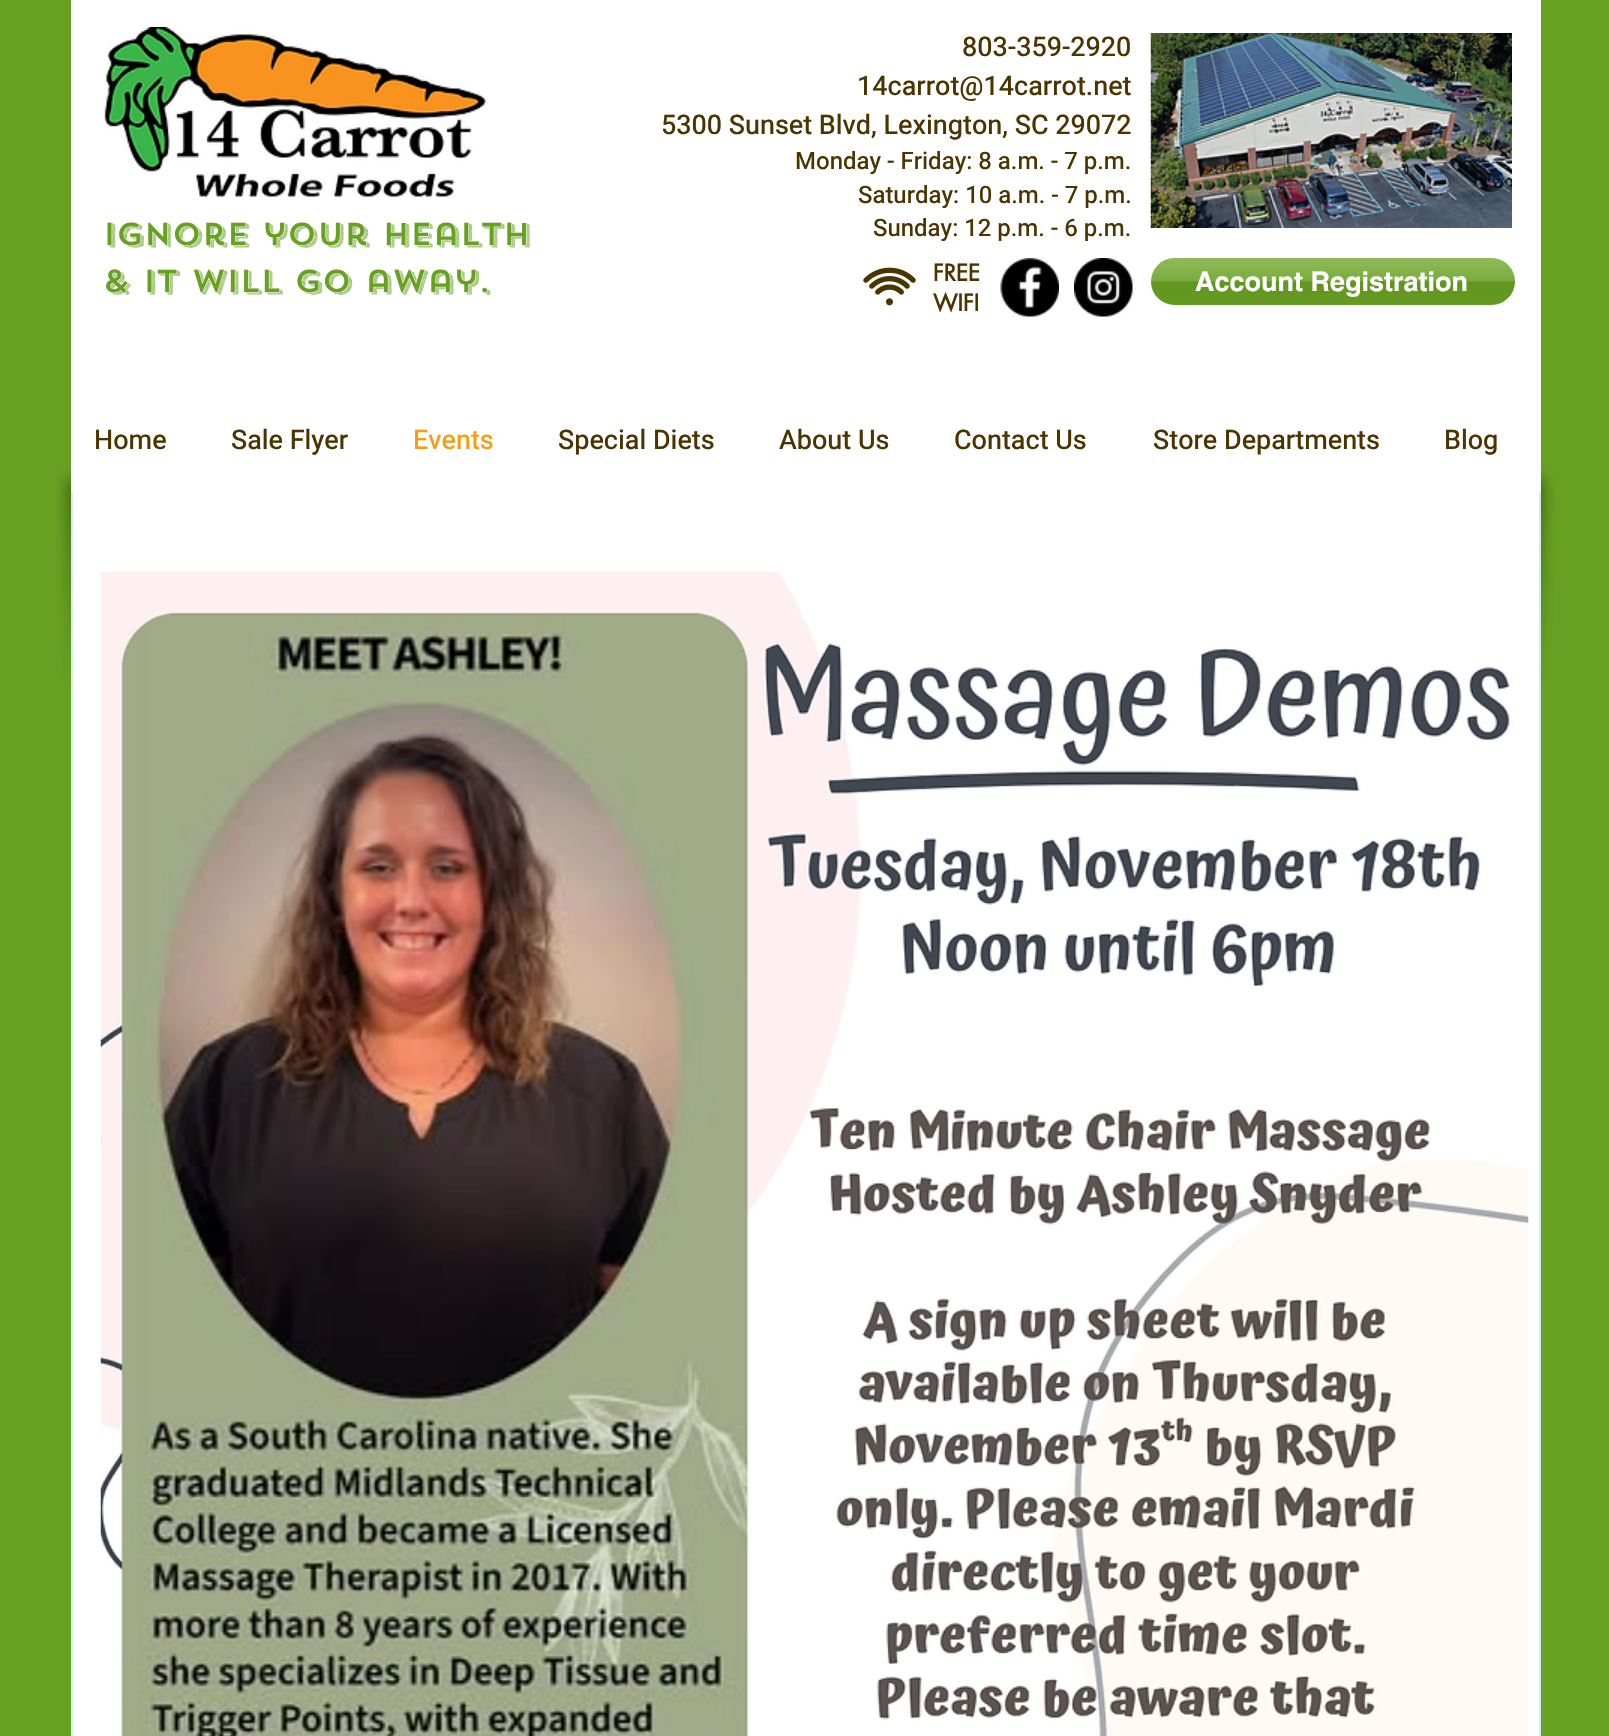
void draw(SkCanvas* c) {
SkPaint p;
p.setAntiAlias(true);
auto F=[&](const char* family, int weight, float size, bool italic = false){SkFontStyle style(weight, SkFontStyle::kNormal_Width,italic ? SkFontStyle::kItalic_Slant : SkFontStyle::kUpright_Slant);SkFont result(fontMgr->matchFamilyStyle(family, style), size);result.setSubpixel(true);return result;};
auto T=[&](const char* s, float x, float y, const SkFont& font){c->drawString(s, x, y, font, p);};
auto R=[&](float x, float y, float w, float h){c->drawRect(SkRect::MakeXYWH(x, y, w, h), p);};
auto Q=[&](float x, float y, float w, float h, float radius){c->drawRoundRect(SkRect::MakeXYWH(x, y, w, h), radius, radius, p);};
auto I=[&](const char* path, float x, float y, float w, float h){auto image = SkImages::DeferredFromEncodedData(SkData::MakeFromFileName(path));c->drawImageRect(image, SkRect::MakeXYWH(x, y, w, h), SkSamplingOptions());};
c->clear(0xff68a122);
p.setColor(0xffffffff);
R(73,492,1466,1244);
p.setStroke(true);
p.setStrokeWidth(2);
p.setColor(0xffd5ecf4);
c->drawRect(SkRect::MakeXYWH(72,483,1468,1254),p);
p.setStroke(false);
p.setColor(0xffffffff);
R(71,0,1470,492);
I("1.png",104,27,385,170);
auto f1 = F("Heebo",500,27);
p.setColor(0xff4c3400);
T("803-359-2920",962,56,f1);
T("14carrot@14carrot.net",857,95,f1);
T("5300 Sunset Blvd, Lexington, SC 29072",661,134,f1);
auto f2 = F("Heebo",500,24);
T("Monday - Friday: 8 a.m. - 7 p.m.",795,169,f2);
T("Saturday: 10 a.m. - 7 p.m.",858,203,f2);
T("Sunday: 12 p.m. - 6 p.m.",873,236,f2);
I("2.png",1150,33,362,195);
auto f3 = F("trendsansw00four",500,31.5);
p.setColor(0xff68a122);
T("Ignore your health",103,245,f3);
T("& it will go away.",103,292,f3);
I("3.png",863,267,53,39);
auto f4 = F("futura",700,22.5);
p.setColor(0xff4c3400);
T("FREE",933,281,f4);
T("WIFI",933,311,f4);
I("4.png",1000,258,59,59);
I("5.png",1074,258,59,59);
p.setColor(0xff68a122);
Q(1151,258,364,47,23.5);
I("6.png",1151,258,364,46);
auto f5 = F("helvetica",700,27);
p.setColor(0xffffffff);
T("Account Registration",1195,291,f5);
p.setColor(0xff4c3400);
T("Home",94,449,f1);
T("Sale Flyer",231,449,f1);
p.setColor(0xfff69d15);
T("Events",413,449,f1);
p.setColor(0xff4c3400);
T("Special Diets",558,449,f1);
T("About Us",779,449,f1);
T("Contact Us",954,449,f1);
T("Store Departments",1153,449,f1);
T("Blog",1444,449,f1);
I("7.png",56,468,15,220);
I("8.png",1541,468,14,215);
I("9.png",100,571,1429,1165);
}
